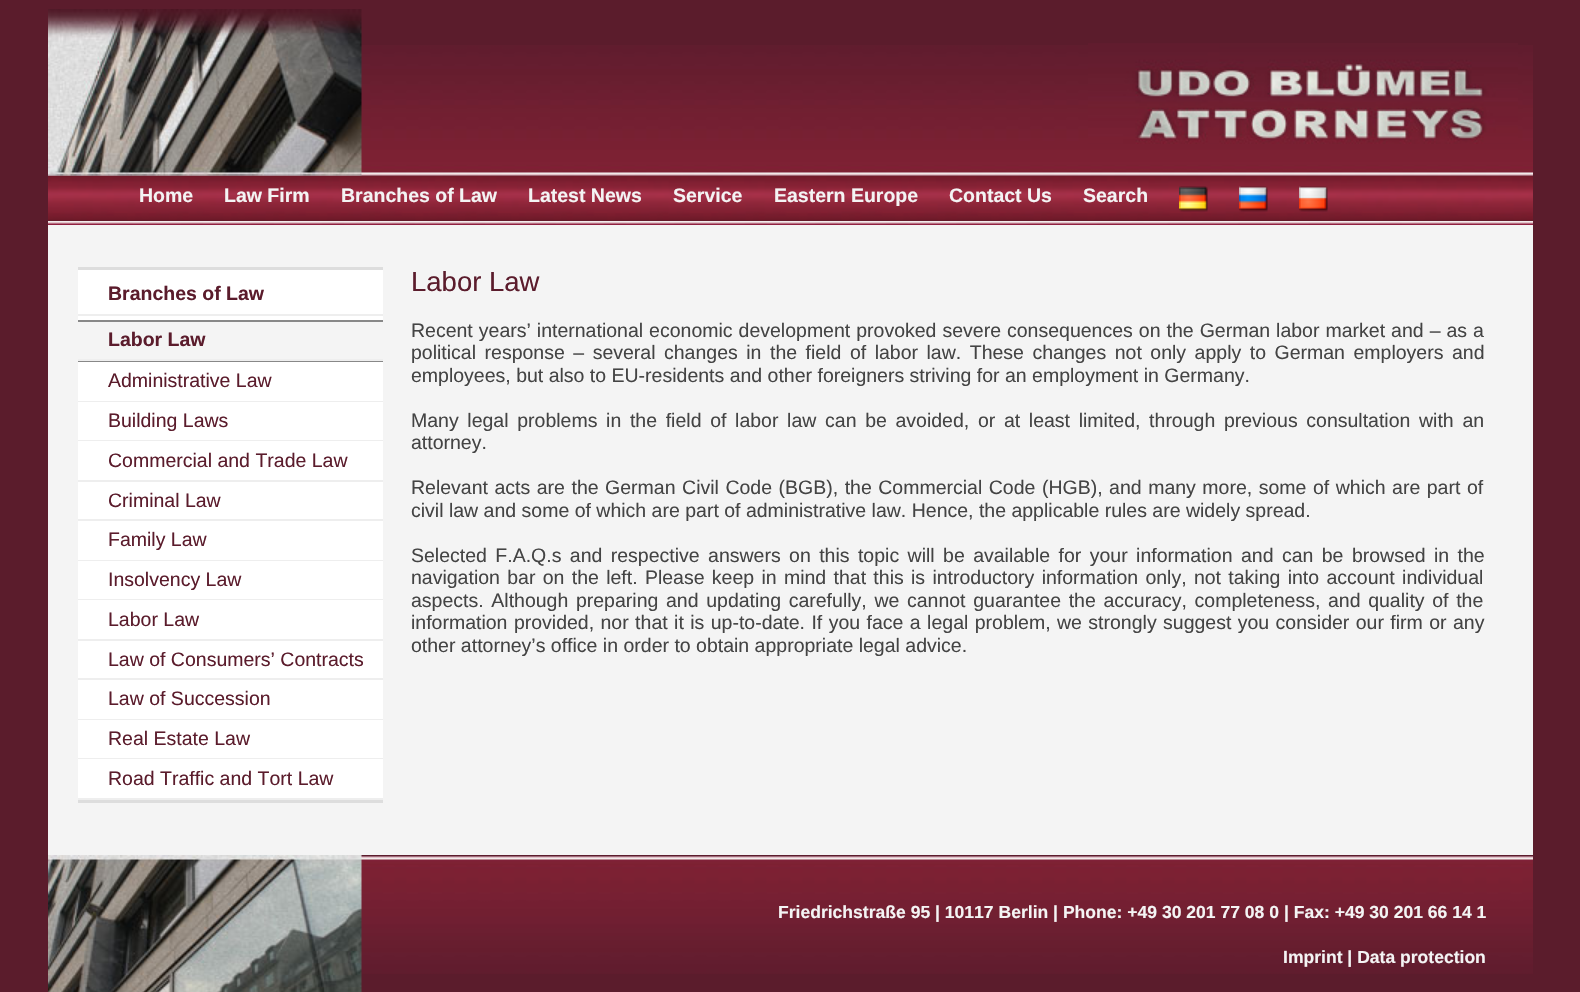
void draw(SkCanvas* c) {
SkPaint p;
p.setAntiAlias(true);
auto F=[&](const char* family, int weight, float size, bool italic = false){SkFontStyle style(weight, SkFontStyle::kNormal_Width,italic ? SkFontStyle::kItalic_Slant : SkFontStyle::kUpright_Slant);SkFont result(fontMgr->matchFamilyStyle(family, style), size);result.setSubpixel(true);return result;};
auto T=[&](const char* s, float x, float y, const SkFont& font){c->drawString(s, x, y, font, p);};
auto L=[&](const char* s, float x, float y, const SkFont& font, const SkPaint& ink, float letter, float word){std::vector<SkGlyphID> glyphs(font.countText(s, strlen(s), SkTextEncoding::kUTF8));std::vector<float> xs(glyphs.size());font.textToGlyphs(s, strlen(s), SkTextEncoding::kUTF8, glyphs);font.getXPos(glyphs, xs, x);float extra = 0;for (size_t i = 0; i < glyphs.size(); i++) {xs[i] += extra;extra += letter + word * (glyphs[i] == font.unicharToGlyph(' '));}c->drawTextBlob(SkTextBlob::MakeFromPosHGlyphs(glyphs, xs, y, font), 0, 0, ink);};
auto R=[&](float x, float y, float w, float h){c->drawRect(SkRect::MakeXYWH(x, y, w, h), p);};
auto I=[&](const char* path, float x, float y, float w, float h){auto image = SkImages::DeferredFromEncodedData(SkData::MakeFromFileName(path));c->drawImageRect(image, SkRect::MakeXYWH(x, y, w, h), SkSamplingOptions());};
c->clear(0xfff4f4f4);
p.setStroke(true);
p.setStrokeWidth(48);
p.setColor(0xff5b1c2c);
c->drawRect(SkRect::MakeXYWH(24,-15,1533,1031),p);
p.setStroke(false);
R(48,9,1485,167);
I("1.png",48,45,1485,131);
I("2.png",48,9,314,167);
I("3.png",1088,43,430,101);
R(48,220,1485,1);
I("4.png",48,176,1485,45);
auto f1 = F("Liberation Sans",700,19.5);
p.setColor(0xfff4f4f4);
T("Home",139,202,f1);
T("Law Firm",224,202,f1);
T("Branches of Law",341,202,f1);
T("Latest News",528,202,f1);
T("Service",673,202,f1);
T("Eastern Europe",774,202,f1);
T("Contact Us",949,202,f1);
T("Search",1083,202,f1);
I("5.png",1179,186,29,26);
I("6.png",1239,186,29,26);
I("7.png",1299,186,29,26);
I("8.png",48,221,1485,4);
p.setColor(0xffdddddd);
R(78,267,305,3);
R(78,800,305,3);
p.setColor(0xffffffff);
R(78,270,305,50);
p.setColor(0xff888888);
R(78,320,305,2);
p.setColor(0xffeeeeee);
R(78,314,305,2);
p.setColor(0xff5b1c2c);
T("Branches of Law",108,300,f1);
p.setColor(0xff888888);
R(78,361,305,1);
p.setColor(0xffeeeeee);
R(78,359,305,2);
p.setColor(0xff5b1c2c);
T("Labor Law",108,346,f1);
p.setColor(0xffffffff);
R(78,362,305,39);
p.setColor(0xffeeeeee);
R(78,401,305,1);
auto f2 = F("Liberation Sans",400,19.5);
p.setColor(0xff5b1c2c);
T("Administrative Law",108,387,f2);
p.setColor(0xffffffff);
R(78,402,305,38);
p.setColor(0xffeeeeee);
R(78,440,305,1);
p.setColor(0xff5b1c2c);
T("Building Laws",108,427,f2);
p.setColor(0xffffffff);
R(78,441,305,39);
p.setColor(0xffeeeeee);
R(78,480,305,2);
p.setColor(0xff5b1c2c);
T("Commercial and Trade Law",108,467,f2);
p.setColor(0xffffffff);
R(78,482,305,37);
p.setColor(0xffeeeeee);
R(78,519,305,2);
p.setColor(0xff5b1c2c);
T("Criminal Law",108,507,f2);
p.setColor(0xffffffff);
R(78,521,305,39);
p.setColor(0xffeeeeee);
R(78,560,305,1);
p.setColor(0xff5b1c2c);
T("Family Law",108,546,f2);
p.setColor(0xffffffff);
R(78,561,305,38);
p.setColor(0xffeeeeee);
R(78,599,305,1);
p.setColor(0xff5b1c2c);
T("Insolvency Law",108,586,f2);
p.setColor(0xffffffff);
R(78,600,305,39);
p.setColor(0xffeeeeee);
R(78,639,305,2);
p.setColor(0xff5b1c2c);
T("Labor Law",108,626,f2);
p.setColor(0xffffffff);
R(78,641,305,37);
p.setColor(0xffeeeeee);
R(78,678,305,2);
p.setColor(0xff5b1c2c);
T("Law of Consumers’ Contracts",108,666,f2);
p.setColor(0xffffffff);
R(78,680,305,39);
p.setColor(0xffeeeeee);
R(78,719,305,1);
p.setColor(0xff5b1c2c);
T("Law of Succession",108,705,f2);
p.setColor(0xffffffff);
R(78,720,305,38);
p.setColor(0xffeeeeee);
R(78,758,305,1);
p.setColor(0xff5b1c2c);
T("Real Estate Law",108,745,f2);
p.setColor(0xffffffff);
R(78,759,305,39);
p.setColor(0xffeeeeee);
R(78,798,305,2);
p.setColor(0xff5b1c2c);
T("Road Traffic and Tort Law",108,785,f2);
auto f3 = F("Liberation Sans",400,27.5);
T("Labor Law",411,291,f3);
p.setColor(0xff444444);
L("Recent years’ international economic development provoked severe consequences on the German labor market and – as a",411,337,f2,p,0,.6);
L("political response – several changes in the field of labor law. These changes not only apply to German employers and",411,359,f2,p,0,3.1);
T("employees, but also to EU-residents and other foreigners striving for an employment in Germany.",411,382,f2);
L("Many legal problems in the field of labor law can be avoided, or at least limited, through previous consultation with an",411,427,f2,p,0,3.25);
T("attorney.",411,449,f2);
L("Relevant acts are the German Civil Code (BGB), the Commercial Code (HGB), and many more, some of which are part of",411,494,f2,p,0,1.1);
T("civil law and some of which are part of administrative law. Hence, the applicable rules are widely spread.",411,517,f2);
L("Selected F.A.Q.s and respective answers on this topic will be available for your information and can be browsed in the",411,562,f2,p,0,3);
L("navigation bar on the left. Please keep in mind that this is introductory information only, not taking into account individual",411,584,f2,p,0,1.9);
L("aspects. Although preparing and updating carefully, we cannot guarantee the accuracy, completeness, and quality of the",411,607,f2,p,0,2.25);
L("information provided, nor that it is up-to-date. If you face a legal problem, we strongly suggest you consider our firm or any",411,629,f2,p,0,1);
T("other attorney’s office in order to obtain appropriate legal advice.",411,652,f2);
p.setColor(0xff5b1c2c);
R(361,855,1172,137);
I("9.png",361,856,1172,118);
I("10.png",48,855,314,137);
auto f4 = F("Liberation Sans",700,17.55);
p.setColor(0xfff4f4f4);
T("Friedrichstraße 95 | 10117 Berlin | Phone: +49 30 201 77 08 0 | Fax: +49 30 201 66 14 1",778,918,f4);
T("Imprint | Data protection",1283,963,f4);
}
